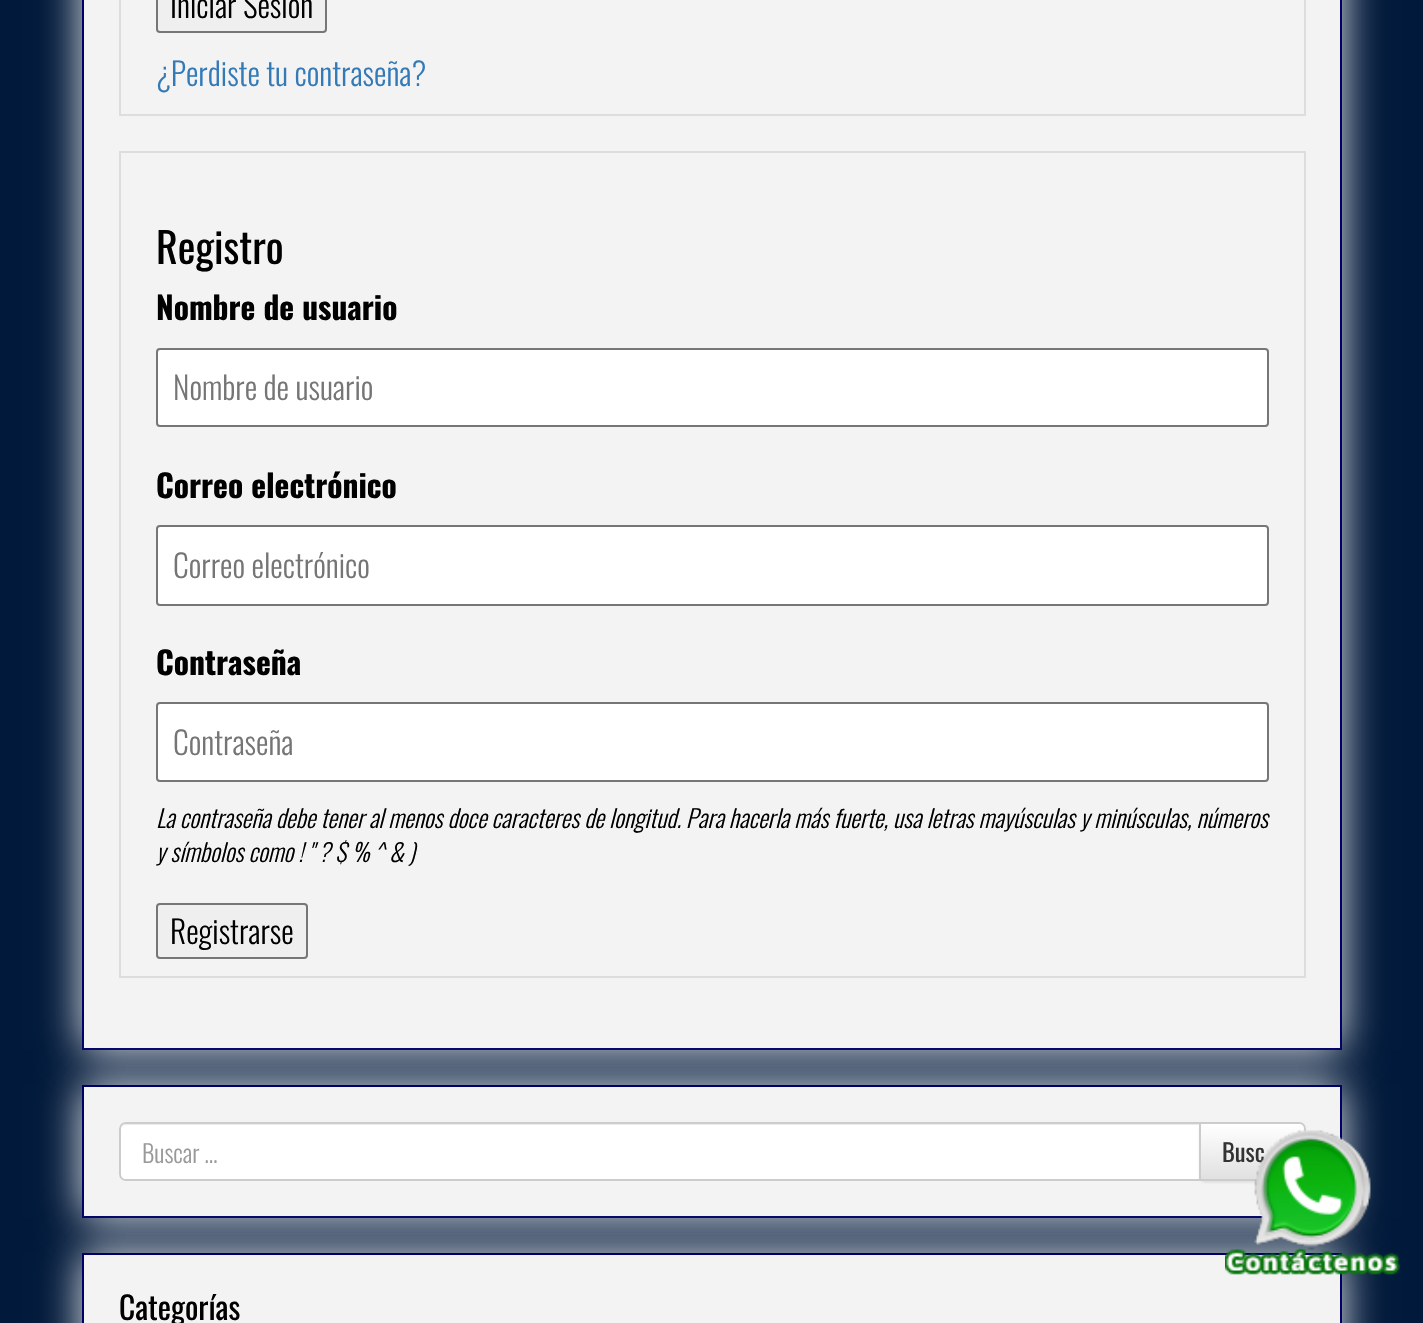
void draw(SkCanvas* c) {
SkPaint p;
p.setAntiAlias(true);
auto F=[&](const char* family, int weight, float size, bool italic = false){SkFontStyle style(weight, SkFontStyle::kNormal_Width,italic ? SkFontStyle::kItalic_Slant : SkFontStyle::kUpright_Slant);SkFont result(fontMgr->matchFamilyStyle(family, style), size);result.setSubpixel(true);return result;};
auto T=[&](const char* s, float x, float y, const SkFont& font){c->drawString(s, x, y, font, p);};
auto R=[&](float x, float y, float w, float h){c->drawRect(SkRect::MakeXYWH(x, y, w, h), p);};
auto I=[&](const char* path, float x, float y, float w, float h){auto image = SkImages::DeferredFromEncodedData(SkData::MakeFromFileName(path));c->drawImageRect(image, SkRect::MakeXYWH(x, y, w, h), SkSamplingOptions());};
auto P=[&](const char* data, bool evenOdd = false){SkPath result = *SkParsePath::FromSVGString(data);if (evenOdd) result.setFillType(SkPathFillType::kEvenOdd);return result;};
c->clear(0xff01193a);
p.setColor(0xe6ffffff);
p.setMaskFilter(SkMaskFilter::MakeBlur(kNormal_SkBlurStyle, 20));
c->drawRect(SkRect::MakeXYWH(82,-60,1260,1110),p);
p.setMaskFilter(nullptr);
p.setColor(0xfff3f3f3);
c->drawRect(SkRect::MakeXYWH(83,-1,1258,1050),p);
p.setStroke(true);
p.setStrokeWidth(2);
p.setColor(0xff000066);
c->drawRect(SkRect::MakeXYWH(83,-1,1258,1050),p);
p.setColor(0xffdddddd);
c->drawRect(SkRect::MakeXYWH(120,-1,1185,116),p);
p.setStroke(false);
p.setColor(0xffefefef);
c->drawRoundRect(SkRect::MakeXYWH(157,-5,169,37),3,3,p);
p.setStroke(true);
p.setColor(0xff767676);
c->drawRoundRect(SkRect::MakeXYWH(157,-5,169,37),3,3,p);
auto f1 = F("Oswald",300,31.5);
p.setStroke(false);
p.setColor(0xff000000);
T("Iniciar Sesión",170,18,f1);
p.setColor(0xff337ab7);
T("¿Perdiste tu contraseña?",156,86,f1);
p.setStroke(true);
p.setColor(0xffdddddd);
c->drawRect(SkRect::MakeXYWH(120,152,1185,825),p);
auto f2 = F("Oswald",400,42);
p.setStroke(false);
p.setColor(0xff000000);
T("Registro",156,264,f2);
auto f3 = F("Oswald",700,31.5);
T("Nombre de usuario",156,320,f3);
p.setColor(0xffffffff);
c->drawRoundRect(SkRect::MakeXYWH(157,349,1111,77),3,3,p);
p.setStroke(true);
p.setColor(0xff767676);
c->drawRoundRect(SkRect::MakeXYWH(157,349,1111,77),3,3,p);
p.setStroke(false);
p.setColor(0xff757575);
T("Nombre de usuario",173,400,f1);
p.setColor(0xff000000);
T("Correo electrónico",156,498,f3);
p.setColor(0xffffffff);
c->drawRoundRect(SkRect::MakeXYWH(157,526,1111,79),3,3,p);
p.setStroke(true);
p.setColor(0xff767676);
c->drawRoundRect(SkRect::MakeXYWH(157,526,1111,79),3,3,p);
p.setStroke(false);
p.setColor(0xff757575);
T("Correo electrónico",173,578,f1);
p.setColor(0xff000000);
T("Contraseña",156,675,f3);
p.setColor(0xffffffff);
c->drawRoundRect(SkRect::MakeXYWH(157,703,1111,78),3,3,p);
p.setStroke(true);
p.setColor(0xff767676);
c->drawRoundRect(SkRect::MakeXYWH(157,703,1111,78),3,3,p);
p.setStroke(false);
p.setColor(0xff757575);
T("Contraseña",173,755,f1);
auto f4 = F("Oswald",300,24.5,true);
p.setColor(0xff000000);
T("La contraseña debe tener al menos doce caracteres de longitud. Para hacerla más fuerte, usa letras mayúsculas y minúsculas, números",156,828,f4);
T("y símbolos como ! \" ? $ % ^ & )",156,862,f4);
p.setColor(0xffefefef);
c->drawRoundRect(SkRect::MakeXYWH(157,904,150,54),3,3,p);
p.setStroke(true);
p.setColor(0xff767676);
c->drawRoundRect(SkRect::MakeXYWH(157,904,150,54),3,3,p);
p.setStroke(false);
p.setColor(0xff000000);
T("Registrarse",170,944,f1);
p.setColor(0xe6ffffff);
p.setMaskFilter(SkMaskFilter::MakeBlur(kNormal_SkBlurStyle, 20));
c->drawRect(SkRect::MakeXYWH(82,1085,1260,133),p);
p.setMaskFilter(nullptr);
p.setColor(0xfff3f3f3);
c->drawRect(SkRect::MakeXYWH(83,1086,1258,131),p);
p.setStroke(true);
p.setColor(0xff000066);
c->drawRect(SkRect::MakeXYWH(83,1086,1258,131),p);
p.setStroke(false);
p.setColor(0xffffffff);
c->drawPath(P("M126 1122h1075v59h-1075c-4 0-7-3-7-7v-45c0-4 3-7 7-7z"),p);
p.setColor(0xffececec);
c->drawPath(P("M126 1125h1073v-1h-1073c-3 0-5 3-5 6c0-2 2-5 5-5z"),p);
p.setStroke(true);
p.setColor(0xffcccccc);
c->drawPath(P("M126 1123h1074v57h-1074c-3.5 0-6-2.5-6-6v-45c0-3.5 2.5-6 6-6z"),p);
auto f5 = F("Oswald",300,24.5);
p.setStroke(false);
p.setColor(0xff999999);
T("Buscar …",142,1163,f5);
p.setColor(0x12000000);
p.setMaskFilter(SkMaskFilter::MakeBlur(kNormal_SkBlurStyle, 1));
c->drawRoundRect(SkRect::MakeXYWH(1199,1124,107,59),7,7,p);
p.setMaskFilter(nullptr);
c->save();
c->clipPath(P("M1199 1122h100c4 0 7 3 7 7v45c0 4-3 7-7 7h-100z"),true);
{
const SkColor colors[] = {0xffffffff,0xffe0e0e0};
const float stops[] = {0,1};
const SkPoint ends[] = {{1252,1124}, {1252,1180}};
p.setShader(SkGradientShader::MakeLinear(ends, colors, stops, 2, SkTileMode::kClamp));
p.setAlpha(255);
}
R(1201,1124,105,55);
c->restore();
p.setStroke(true);
p.setShader(nullptr);
p.setColor(0xffcccccc);
c->drawPath(P("M1200 1123h99c3.5 0 6 2.5 6 6v45c0 3.5-2.5 6-6 6h-99z"),p);
auto f6 = F("Oswald",400,24.5);
p.setStroke(false);
p.setColor(0xff333333);
T("Busc",1222,1162,f6);
p.setColor(0xe6ffffff);
p.setMaskFilter(SkMaskFilter::MakeBlur(kNormal_SkBlurStyle, 20));
c->drawRect(SkRect::MakeXYWH(82,1253,1260,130),p);
p.setMaskFilter(nullptr);
p.setColor(0xfff3f3f3);
c->drawRect(SkRect::MakeXYWH(83,1254,1258,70),p);
p.setStroke(true);
p.setColor(0xff000066);
c->drawRect(SkRect::MakeXYWH(83,1254,1258,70),p);
auto f7 = F("Oswald",400,31.5);
p.setStroke(false);
p.setColor(0xff000000);
T("Categorías",119,1320,f7);
I("1.png",1225,1130,175,145);
}
